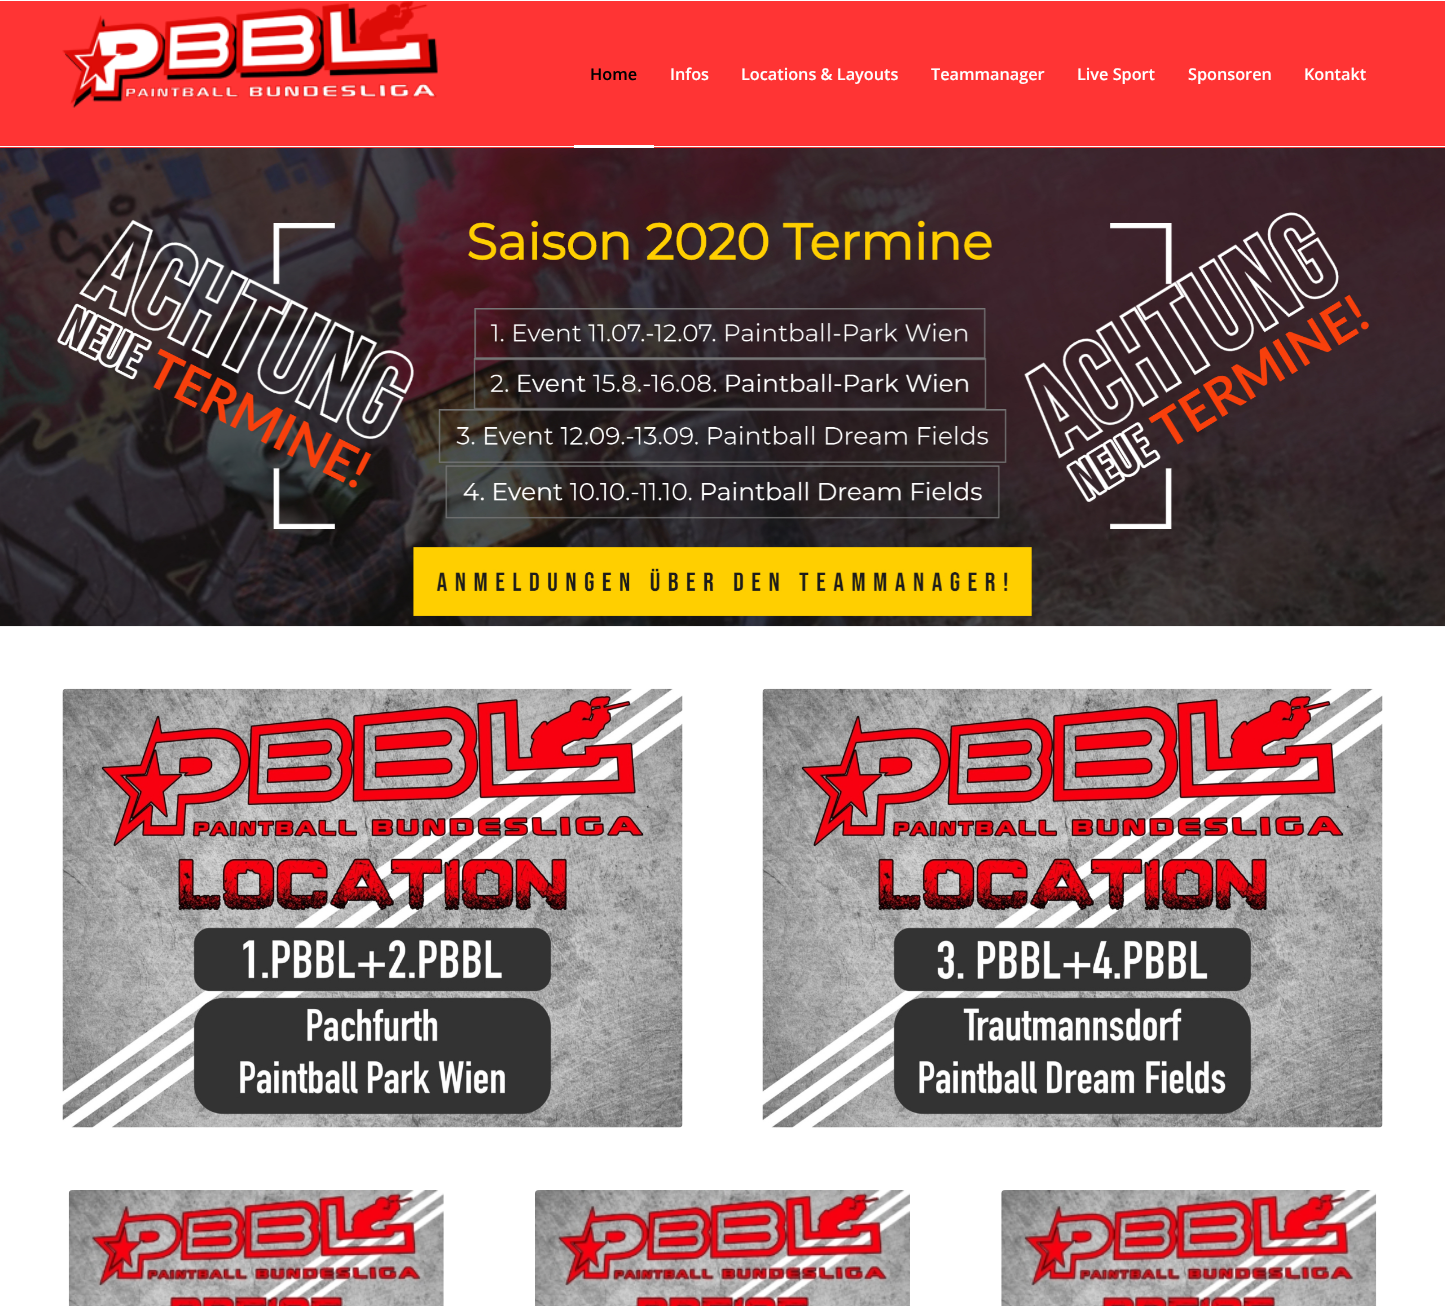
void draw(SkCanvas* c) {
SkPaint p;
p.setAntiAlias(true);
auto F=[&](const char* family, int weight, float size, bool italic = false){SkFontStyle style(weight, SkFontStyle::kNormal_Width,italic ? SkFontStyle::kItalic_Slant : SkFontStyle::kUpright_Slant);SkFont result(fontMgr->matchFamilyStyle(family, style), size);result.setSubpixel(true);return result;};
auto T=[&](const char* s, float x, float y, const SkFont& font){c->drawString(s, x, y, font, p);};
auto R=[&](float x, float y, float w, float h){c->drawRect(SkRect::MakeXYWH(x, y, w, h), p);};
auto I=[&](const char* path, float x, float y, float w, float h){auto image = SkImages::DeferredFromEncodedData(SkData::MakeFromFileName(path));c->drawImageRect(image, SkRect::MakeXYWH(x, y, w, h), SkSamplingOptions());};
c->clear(0xffff3434);
p.setColor(0xffffffff);
R(0,0,1445,1);
R(0,626,1445,680);
I("2.png",0,145,1445,482);
p.setColor(0xf2ff3434);
R(0,145,1445,3);
p.setColor(0xffffffff);
R(0,146,1445,1);
I("1.png",62,1,376,107);
auto f1 = F("Open Sans",600,16.25);
p.setColor(0xff000000);
T("Home",590,80,f1);
p.setColor(0xffffffff);
R(574,145,80,3);
T("Infos",670,80,f1);
T("Locations & Layouts",741,80,f1);
T("Teammanager",931,80,f1);
T("Live Sport",1077,80,f1);
T("Sponsoren",1188,80,f1);
T("Kontakt",1304,80,f1);
I("3.png",62,688,621,440);
I("4.png",762,688,621,440);
I("5.png",68,1190,376,116);
I("6.png",535,1190,375,116);
I("7.png",1001,1190,376,116);
}
